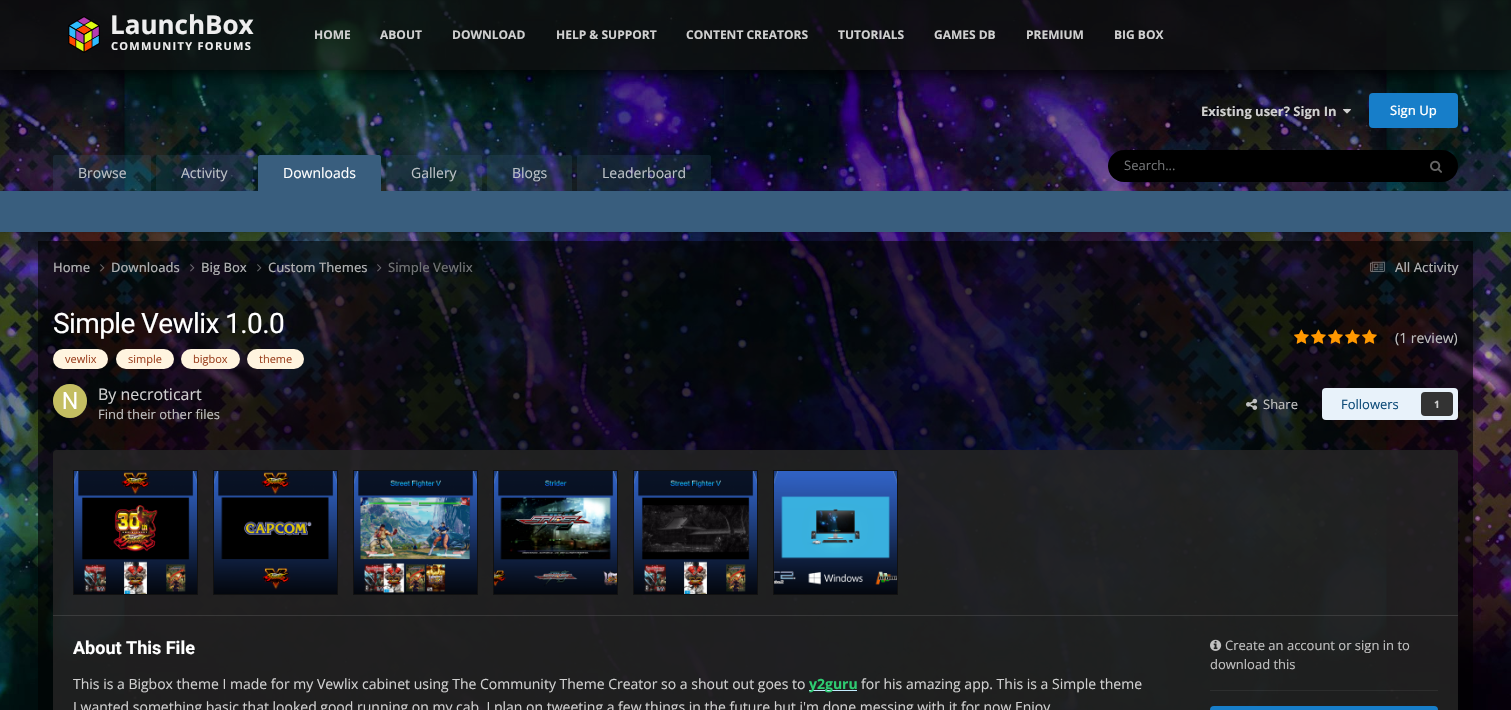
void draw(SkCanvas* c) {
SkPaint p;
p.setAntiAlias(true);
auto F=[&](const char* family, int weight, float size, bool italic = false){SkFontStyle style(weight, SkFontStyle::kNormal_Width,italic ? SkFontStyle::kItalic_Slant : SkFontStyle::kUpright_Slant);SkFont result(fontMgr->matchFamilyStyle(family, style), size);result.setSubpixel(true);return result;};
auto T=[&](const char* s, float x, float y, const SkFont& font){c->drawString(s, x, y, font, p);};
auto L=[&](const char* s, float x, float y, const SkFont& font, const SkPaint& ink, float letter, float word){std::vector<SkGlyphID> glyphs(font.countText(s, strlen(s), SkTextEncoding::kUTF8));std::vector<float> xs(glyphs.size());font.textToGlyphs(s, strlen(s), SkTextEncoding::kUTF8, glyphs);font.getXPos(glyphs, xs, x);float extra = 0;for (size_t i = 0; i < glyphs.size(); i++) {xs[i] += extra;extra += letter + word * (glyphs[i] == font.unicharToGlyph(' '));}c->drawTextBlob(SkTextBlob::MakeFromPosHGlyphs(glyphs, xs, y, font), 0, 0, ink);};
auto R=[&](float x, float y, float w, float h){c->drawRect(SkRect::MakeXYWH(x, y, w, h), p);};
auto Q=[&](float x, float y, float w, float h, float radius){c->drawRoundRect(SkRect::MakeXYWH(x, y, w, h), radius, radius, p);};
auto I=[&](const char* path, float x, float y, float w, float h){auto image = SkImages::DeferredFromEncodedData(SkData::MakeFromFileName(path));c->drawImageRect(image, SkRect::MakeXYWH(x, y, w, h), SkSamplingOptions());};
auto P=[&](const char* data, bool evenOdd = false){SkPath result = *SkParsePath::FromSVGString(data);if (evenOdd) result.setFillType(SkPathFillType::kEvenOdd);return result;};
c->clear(0xffffffff);
I("1.png",0,0,1511,710);
p.setColor(0xff177ec9);
Q(1369,93,89,35,4);
c->save();
c->clipRect(SkRect::MakeXYWH(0,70,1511,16));
p.setColor(0xff000000);
p.setMaskFilter(SkMaskFilter::MakeBlur(kNormal_SkBlurStyle, 7.5));
c->drawRect(SkRect::MakeXYWH(0,1,1511,70),p);
p.setMaskFilter(nullptr);
c->restore();
p.setColor(0xba111111);
R(0,0,1511,70);
I("2.png",68,16,32,37);
auto f1 = F("Open Sans",700,26);
p.setColor(0xffeeeeee);
T("LaunchBox",110,34,f1);
auto f2 = F("Open Sans",700,11);
L("COMMUNITY FORUMS",111,50,f2,p,1.3,0);
auto f3 = F("Open Sans",700,12);
p.setColor(0xffd0d0d0);
T("HOME",314,39,f3);
T("ABOUT",380,39,f3);
T("DOWNLOAD",452,39,f3);
T("HELP & SUPPORT",556,39,f3);
T("CONTENT CREATORS",686,39,f3);
T("TUTORIALS",838,39,f3);
T("GAMES DB",934,39,f3);
T("PREMIUM",1026,39,f3);
T("BIG BOX",1114,39,f3);
auto f4 = F("Open Sans",700,13);
T("Existing user? Sign In",1201,116,f4);
I("3.png",1343,109,8,5);
auto f5 = F("Open Sans",500,13);
p.setColor(0xffffffff);
T("Sign Up",1390,115,f5);
p.setColor(0xff000000);
Q(1108,150,350,32,16);
auto f6 = F("Open Sans",400,13);
p.setColor(0xff717375);
T("Search...",1124,170,f6);
I("4.png",1430,160,12,13);
p.setColor(0x1a000000);
p.setMaskFilter(SkMaskFilter::MakeBlur(kNormal_SkBlurStyle, 1));
c->drawRect(SkRect::MakeXYWH(0,192,1511,41),p);
p.setMaskFilter(nullptr);
p.setColor(0x33395e7e);
c->drawPath(P("M55 155h94c1 0 2 1 2 2v34h-98v-34c0-1 1-2 2-2z"),p);
auto f7 = F("Open Sans",400,14);
p.setColor(0xffbbc1c6);
T("Browse",78,178,f7);
p.setColor(0x33395e7e);
c->drawPath(P("M158 155h93c1 0 2 1 2 2v34h-97v-34c0-1 1-2 2-2z"),p);
p.setColor(0xffbbc1c6);
T("Activity",181,178,f7);
p.setColor(0xff395e7e);
c->drawPath(P("M260 155h119c1 0 2 1 2 2v34h-123v-34c0-1 1-2 2-2z"),p);
p.setColor(0xffffffff);
T("Downloads",283,178,f7);
p.setColor(0x33395e7e);
c->drawPath(P("M388 155h92c1 0 2 1 2 2v34h-96v-34c0-1 1-2 2-2z"),p);
p.setColor(0xffbbc1c6);
T("Gallery",411,178,f7);
p.setColor(0x33395e7e);
c->drawPath(P("M489 155h81c1 0 2 1 2 2v34h-85v-34c0-1 1-2 2-2z"),p);
p.setColor(0xffbbc1c6);
T("Blogs",512,178,f7);
p.setColor(0x33395e7e);
c->drawPath(P("M579 155h130c1 0 2 1 2 2v34h-134v-34c0-1 1-2 2-2z"),p);
p.setColor(0xffbbc1c6);
T("Leaderboard",602,178,f7);
p.setColor(0xff395e7e);
R(0,191,1511,41);
p.setColor(0x99000000);
R(38,241,1435,469);
p.setColor(0xffafb0b1);
T("Home",53,272,f5);
I("5.png",100,264,5,8);
T("Downloads",111,272,f5);
I("6.png",190,264,5,8);
T("Big Box",201,272,f5);
I("7.png",257,264,5,8);
T("Custom Themes",268,272,f5);
I("8.png",377,264,5,8);
p.setColor(0xff717375);
T("Simple Vewlix",388,272,f5);
I("9.png",1370,261,15,11);
p.setColor(0xffafb0b1);
T("All Activity",1395,272,f5);
auto f8 = F("Roboto",400,28);
p.setColor(0xffffffff);
L("Simple Vewlix 1.0.0",53,333,f8,p,-.6,0);
p.setColor(0xfffff4df);
Q(53,349,55,20,10);
auto f9 = F("Open Sans",400,11);
p.setColor(0xff9c4221);
T("vewlix",65,363,f9);
p.setColor(0xfffff4df);
Q(116,349,58,20,10);
p.setColor(0xff9c4221);
T("simple",128,363,f9);
p.setColor(0xfffff4df);
Q(181,349,59,20,10);
p.setColor(0xff9c4221);
T("bigbox",193,363,f9);
p.setColor(0xfffff4df);
Q(247,349,57,20,10);
p.setColor(0xff9c4221);
T("theme",259,363,f9);
I("10.png",1294,329,15,15);
I("11.png",1311,329,15,15);
I("12.png",1328,329,15,15);
I("13.png",1345,329,15,15);
I("14.png",1362,329,15,15);
p.setColor(0xffc0c0c0);
T("(1 review)",1395,343,f7);
p.setColor(0xff333333);
c->drawCircle(70,401,17,p);
I("15.png",53,384,34,34);
auto f10 = F("Open Sans",400,16);
p.setColor(0xffd0d0d0);
T("By necroticart",98,400,f10);
p.setColor(0xffc0c0c0);
T("Find their other files",98,419,f6);
I("16.png",1246,398,12,12);
T("Share",1263,409,f6);
p.setColor(0xffe8f2fa);
Q(1322,388,136,32,4);
p.setColor(0xff0e4c79);
T("Followers",1341,409,f6);
p.setColor(0xff333333);
Q(1421,392,32,24,4);
auto f11 = F("Open Sans",700,10);
p.setColor(0xffd0d0d0);
T("1",1434,408,f11);
p.setColor(0xde222222);
Q(53,450,1405,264,4);
p.setColor(0x26c0c0c0);
R(53,615,1405,1);
I("17.png",74,471,123,123);
p.setStroke(true);
p.setStrokeWidth(1);
p.setColor(0xff111111);
c->drawRect(SkRect::MakeXYWH(73.5,470.5,124,124),p);
I("18.png",214,471,123,123);
c->drawRect(SkRect::MakeXYWH(213.5,470.5,124,124),p);
I("19.png",354,471,123,123);
c->drawRect(SkRect::MakeXYWH(353.5,470.5,124,124),p);
I("20.png",494,471,123,123);
c->drawRect(SkRect::MakeXYWH(493.5,470.5,124,124),p);
I("21.png",634,471,123,123);
c->drawRect(SkRect::MakeXYWH(633.5,470.5,124,124),p);
I("22.png",774,471,123,123);
c->drawRect(SkRect::MakeXYWH(773.5,470.5,124,124),p);
auto f12 = F("Roboto",700,18);
p.setStroke(false);
p.setColor(0xffffffff);
T("About This File",73,654,f12);
p.setColor(0xffd0d0d0);
T("This is a Bigbox theme I made for my Vewlix cabinet using The Community Theme Creator so a shout out goes to",73,689,f7);
p.setColor(0xffc3edff);
R(809,690,48,1);
auto f13 = F("Open Sans",700,14);
p.setColor(0xff2ecc71);
T("y2guru",809,689,f13);
p.setColor(0xffd0d0d0);
T("for his amazing app. This is a Simple theme",861,689,f7);
T("I wanted something basic that looked good running on my cab. I plan on tweeting a few things in the future but i'm done messing with it for now Enjoy",73,712,f7);
I("23.png",1210,639,12,12);
p.setColor(0xffc0c0c0);
T("Create an account or sign in to",1225,650,f6);
T("download this",1210,669,f6);
p.setColor(0x14d0d0d0);
R(1210,690,228,1);
p.setColor(0xff177ec9);
Q(1210,706,228,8,4);
}
